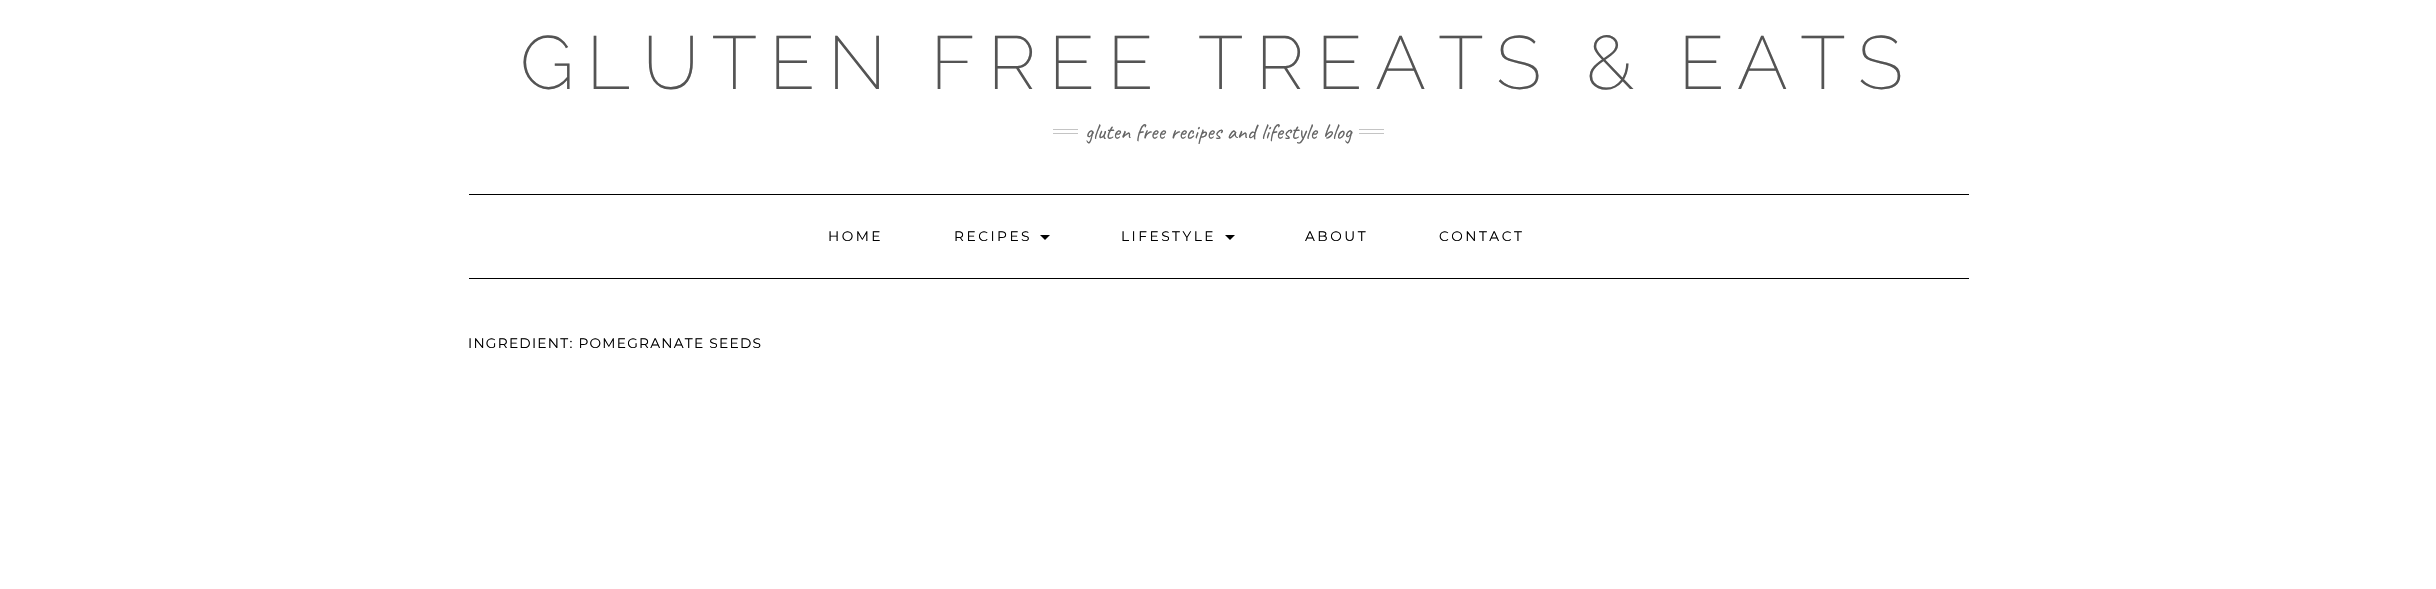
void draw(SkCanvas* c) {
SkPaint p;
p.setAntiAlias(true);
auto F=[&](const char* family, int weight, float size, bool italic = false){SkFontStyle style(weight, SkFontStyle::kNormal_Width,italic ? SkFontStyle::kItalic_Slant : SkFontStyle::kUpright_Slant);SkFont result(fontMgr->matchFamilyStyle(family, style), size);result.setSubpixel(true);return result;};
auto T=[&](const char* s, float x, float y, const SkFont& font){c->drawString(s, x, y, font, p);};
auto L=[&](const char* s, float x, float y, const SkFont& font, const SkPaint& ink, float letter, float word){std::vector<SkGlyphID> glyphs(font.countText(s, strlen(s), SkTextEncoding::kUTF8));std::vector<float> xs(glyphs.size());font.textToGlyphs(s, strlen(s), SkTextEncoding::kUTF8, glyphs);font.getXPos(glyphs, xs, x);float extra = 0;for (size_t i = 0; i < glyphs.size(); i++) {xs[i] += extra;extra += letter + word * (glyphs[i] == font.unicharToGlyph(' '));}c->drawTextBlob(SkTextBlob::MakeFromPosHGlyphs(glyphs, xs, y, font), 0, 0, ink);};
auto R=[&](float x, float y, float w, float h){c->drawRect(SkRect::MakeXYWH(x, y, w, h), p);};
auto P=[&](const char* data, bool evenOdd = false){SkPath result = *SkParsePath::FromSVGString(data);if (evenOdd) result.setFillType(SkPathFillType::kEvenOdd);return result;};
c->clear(0xffffffff);
auto f1 = F("Raleway",100,75);
p.setColor(0xff545454);
L("GLUTEN FREE TREATS & EATS",520,89,f1,p,12.5,0);
p.setColor(0xffc4c4c4);
R(1053,129,25,1);
R(1053,133,25,1);
auto f2 = F("Caveat",400,22.5);
p.setColor(0xff646464);
T("gluten free recipes and lifestyle blog",1085,139,f2);
p.setColor(0xffc4c4c4);
R(1359,129,25,1);
R(1359,133,25,1);
p.setColor(0xff000000);
R(469,194,1500,1);
R(469,278,1500,1);
auto f3 = F("Montserrat",400,13.75);
L("HOME",828,241,f3,p,2.5,0);
L("RECIPES",954,241,f3,p,2.5,0);
c->drawPath(P("M1040 235h10l-5 5z"),p);
L("LIFESTYLE",1121,241,f3,p,2.5,0);
c->drawPath(P("M1225 235h10l-5 5z"),p);
L("ABOUT",1305,241,f3,p,2.5,0);
L("CONTACT",1439,241,f3,p,2.5,0);
L("INGREDIENT: POMEGRANATE SEEDS",468,348,f3,p,1.25,0);
}
